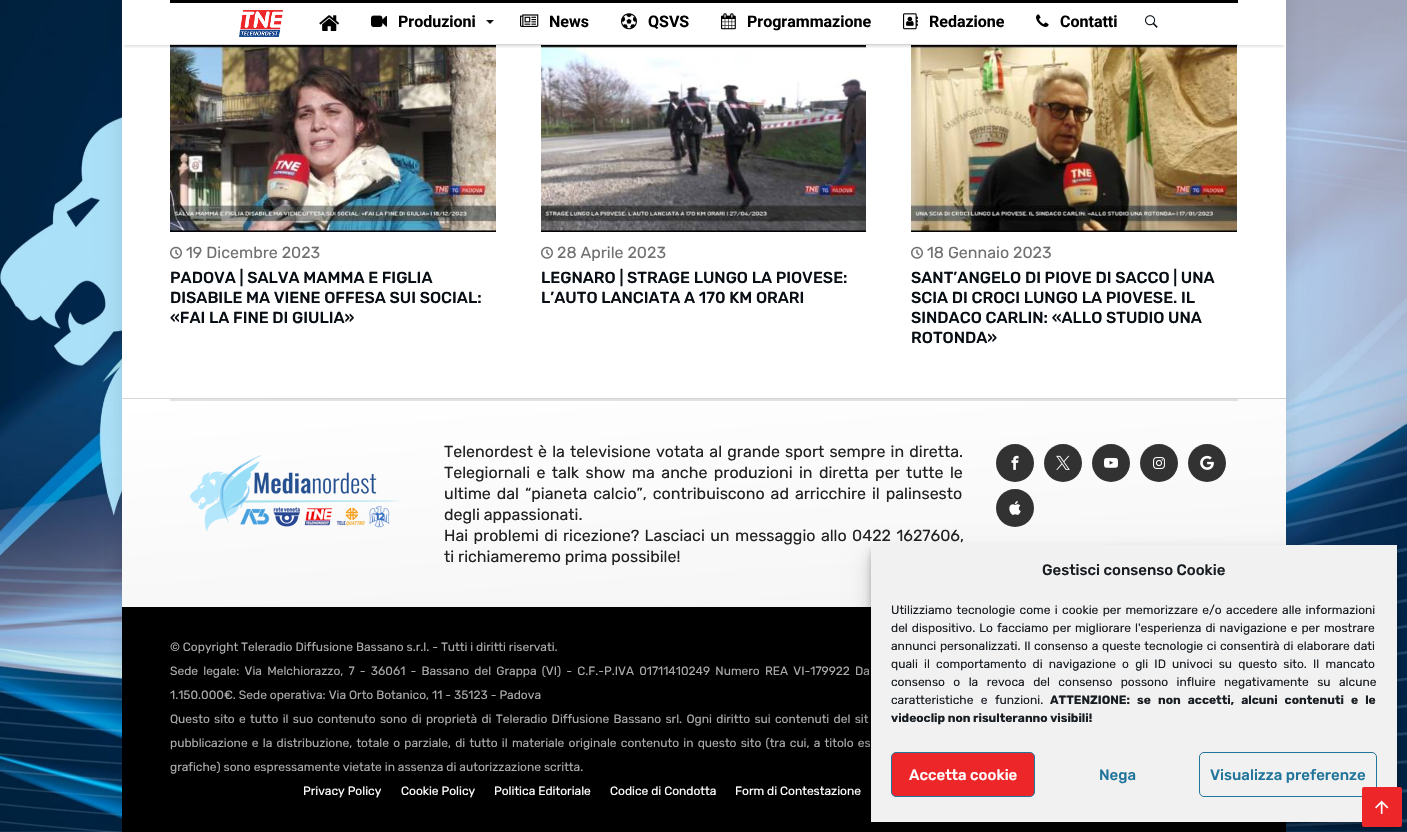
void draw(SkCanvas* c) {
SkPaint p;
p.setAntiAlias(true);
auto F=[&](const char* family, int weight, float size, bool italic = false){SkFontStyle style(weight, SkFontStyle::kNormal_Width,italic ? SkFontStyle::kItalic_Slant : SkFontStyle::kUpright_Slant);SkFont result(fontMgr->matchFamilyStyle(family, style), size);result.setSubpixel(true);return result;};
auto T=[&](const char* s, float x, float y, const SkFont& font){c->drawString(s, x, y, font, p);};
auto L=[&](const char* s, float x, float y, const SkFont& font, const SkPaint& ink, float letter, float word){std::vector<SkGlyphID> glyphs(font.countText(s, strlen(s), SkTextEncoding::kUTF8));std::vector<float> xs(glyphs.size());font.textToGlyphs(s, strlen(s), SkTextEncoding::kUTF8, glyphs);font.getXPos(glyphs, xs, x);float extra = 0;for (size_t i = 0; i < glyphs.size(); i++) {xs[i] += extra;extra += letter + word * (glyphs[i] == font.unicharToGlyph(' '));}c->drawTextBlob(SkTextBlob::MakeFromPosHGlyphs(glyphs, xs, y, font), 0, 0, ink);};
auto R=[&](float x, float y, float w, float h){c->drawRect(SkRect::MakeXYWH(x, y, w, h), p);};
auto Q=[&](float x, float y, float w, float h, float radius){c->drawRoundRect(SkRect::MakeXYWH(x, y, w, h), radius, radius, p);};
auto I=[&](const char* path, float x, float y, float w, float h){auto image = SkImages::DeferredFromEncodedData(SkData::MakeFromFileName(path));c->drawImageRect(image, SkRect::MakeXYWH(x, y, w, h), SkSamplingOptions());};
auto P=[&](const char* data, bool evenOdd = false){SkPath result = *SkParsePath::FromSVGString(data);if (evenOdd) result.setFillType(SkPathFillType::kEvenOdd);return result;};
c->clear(0xffffffff);
I("1.png",0,0,1407,832);
p.setColor(0x1a000000);
p.setMaskFilter(SkMaskFilter::MakeBlur(kNormal_SkBlurStyle, 10));
c->drawRect(SkRect::MakeXYWH(122,-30,1164,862),p);
p.setMaskFilter(nullptr);
p.setColor(0xffffffff);
R(122,0,1164,398);
I("11.png",170,45,326,187);
I("13.png",541,45,325,187);
I("14.png",911,45,326,187);
c->save();
c->clipRect(SkRect::MakeXYWH(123,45,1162,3));
p.setColor(0x1a000000);
p.setMaskFilter(SkMaskFilter::MakeBlur(kNormal_SkBlurStyle, 1));
c->drawRect(SkRect::MakeXYWH(124,6,1160,41),p);
p.setMaskFilter(nullptr);
c->restore();
p.setColor(0xff000000);
R(170,0,1068,3);
p.setColor(0xffd5d5d5);
R(170,44,1068,1);
I("2.png",239,10,44,27);
I("3.png",319,15,21,16);
I("4.png",371,15,16,12);
auto f1 = F("Roboto",700,16);
p.setColor(0xff000000);
T("Produzioni",398,27,f1);
p.setColor(0xff111111);
c->drawPath(P("M486 20h8l-4 4z"),p);
I("5.png",520,14,19,13);
p.setColor(0xff000000);
T("News",549,27,f1);
I("6.png",621,13,16,17);
T("QSVS",648,27,f1);
I("7.png",721,13,15,17);
T("Programmazione",747,27,f1);
I("8.png",903,13,15,17);
T("Redazione",929,27,f1);
I("9.png",1036,14,13,13);
T("Contatti",1060,27,f1);
I("10.png",1145,15,13,13);
I("12.png",170,246,12,13);
auto f2 = F("Rubik",400,16);
p.setColor(0xff707070);
T("19 Dicembre 2023",186,258,f2);
auto f3 = F("Rubik",500,16);
p.setColor(0xff080e14);
T("PADOVA | SALVA MAMMA E FIGLIA",170,283,f3);
T("DISABILE MA VIENE OFFESA SUI SOCIAL:",170,303,f3);
T("«FAI LA FINE DI GIULIA»",170,323,f3);
I("12.png",541,246,12,13);
p.setColor(0xff707070);
T("28 Aprile 2023",557,258,f2);
p.setColor(0xff080e14);
T("LEGNARO | STRAGE LUNGO LA PIOVESE:",541,283,f3);
T("L’AUTO LANCIATA A 170 KM ORARI",541,303,f3);
I("12.png",911,246,12,13);
p.setColor(0xff707070);
T("18 Gennaio 2023",927,258,f2);
p.setColor(0xff080e14);
T("SANT’ANGELO DI PIOVE DI SACCO | UNA",911,283,f3);
T("SCIA DI CROCI LUNGO LA PIOVESE. IL",911,303,f3);
T("SINDACO CARLIN: «ALLO STUDIO UNA",911,323,f3);
T("ROTONDA»",911,343,f3);
{
const SkColor colors[] = {0xffffffff,0xffededed};
const float stops[] = {0,1};
const SkPoint ends[] = {{686,-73}, {722,438}};
p.setShader(SkGradientShader::MakeLinear(ends, colors, stops, 2, SkTileMode::kClamp));
p.setAlpha(255);
}
R(122,398,1164,1);
{
const SkColor colors[] = {0xffffffff,0xffededed};
const float stops[] = {0,1};
const SkPoint ends[] = {{686,360}, {722,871}};
p.setShader(SkGradientShader::MakeLinear(ends, colors, stops, 2, SkTileMode::kClamp));
p.setAlpha(255);
}
R(122,399,1164,208);
p.setShader(nullptr);
p.setColor(0x1a000000);
R(122,398,1164,1);
p.setColor(0x1c000000);
R(170,399,1068,2);
I("15.png",189,455,212,77);
p.setColor(0xff222222);
L("Telenordest è la televisione votata al grande sport sempre in diretta.",444,457,f2,p,0,1.25);
L("Telegiornali e talk show ma anche produzioni in diretta per tutte le",444,478,f2,p,0,2.5);
L("ultime dal “pianeta calcio”, contribuiscono ad arricchire il palinsesto",444,499,f2,p,0,2);
T("degli appassionati.",444,520,f2);
L("Hai problemi di ricezione? Lasciaci un messaggio allo 0422 1627606,",444,541,f2,p,0,1.5);
T("ti richiameremo prima possibile!",444,562,f2);
p.setColor(0xff323232);
c->drawCircle(1015,463,19,p);
I("16.png",1011,455,8,15);
c->drawCircle(1063,463,19,p);
I("17.png",1056,455,14,15);
c->drawCircle(1111,463,19,p);
I("18.png",1104,457,14,11);
c->drawCircle(1159,463,19,p);
I("19.png",1153,457,12,12);
c->drawCircle(1207,463,19,p);
I("20.png",1200,455,14,15);
c->drawCircle(1015,508,19,p);
I("21.png",1009,500,12,15);
p.setColor(0xff000000);
R(122,607,1164,225);
auto f4 = F("Rubik",400,12);
p.setColor(0xffaaaaaa);
T("© Copyright Teleradio Diffusione Bassano s.r.l. - Tutti i diritti riservati.",170,651,f4);
L("Sede legale: Via Melchiorazzo, 7 - 36061 - Bassano del Grappa (VI) - C.F.-P.IVA 01711410249 Numero REA VI-179922 Da",170,675,f4,p,0,2.25);
T("1.150.000€. Sede operativa: Via Orto Botanico, 11 - 35123 - Padova",170,699,f4);
L("Questo sito e tutto il suo contenuto sono di proprietà di Teleradio Diffusione Bassano srl. Ogni diritto sui contenuti del sit",170,723,f4,p,0,1.4);
L("pubblicazione e la distribuzione, totale o parziale, di tutto il materiale originale contenuto in questo sito (tra cui, a titolo es",170,747,f4,p,0,1.3);
T("grafiche) sono espressamente vietate in assenza di autorizzazione scritta.",170,771,f4);
p.setColor(0xffffffff);
T("Privacy Policy",303,795,f4);
T("Cookie Policy",401,795,f4);
T("Politica Editoriale",494,795,f4);
T("Codice di Condotta",610,795,f4);
T("Form di Contestazione",735,795,f4);
p.setColor(0x3b000000);
p.setMaskFilter(SkMaskFilter::MakeBlur(kNormal_SkBlurStyle, 3));
c->drawRect(SkRect::MakeXYWH(871,551,526,277),p);
p.setMaskFilter(nullptr);
p.setColor(0x30000000);
p.setMaskFilter(SkMaskFilter::MakeBlur(kNormal_SkBlurStyle, 10));
c->drawRect(SkRect::MakeXYWH(871,555,526,277),p);
p.setMaskFilter(nullptr);
p.setColor(0xfff1f1f1);
R(871,545,526,277);
auto f5 = F("Rubik",500,15);
p.setColor(0xff191e23);
T("Gestisci consenso Cookie",1042,575,f5);
L("Utilizziamo tecnologie come i cookie per memorizzare e/o accedere alle informazioni",891,614,f4,p,0,1.4);
L("del dispositivo. Lo facciamo per migliorare l'esperienza di navigazione e per mostrare",891,632,f4,p,0,1.1);
L("annunci personalizzati. Il consenso a queste tecnologie ci consentirà di elaborare dati",891,650,f4,p,0,.75);
L("quali il comportamento di navigazione o gli ID univoci su questo sito. Il mancato",891,668,f4,p,0,3.25);
L("consenso o la revoca del consenso possono influire negativamente su alcune",891,686,f4,p,0,5.5);
L("caratteristiche e funzioni.",891,704,f4,p,0,4.5);
auto f6 = F("Rubik",700,12);
L("ATTENZIONE: se non accetti, alcuni contenuti e le",1050,704,f6,p,0,4.5);
T("videoclip non risulteranno visibili!",891,722,f6);
p.setColor(0xffed2729);
c->drawRoundRect(SkRect::MakeXYWH(891.5,752.5,143,44),4.5,4.5,p);
p.setStroke(true);
p.setStrokeWidth(1);
p.setColor(0xff21759b);
c->drawRoundRect(SkRect::MakeXYWH(891.5,752.5,143,44),4.5,4.5,p);
p.setStroke(false);
p.setColor(0xffffffff);
T("Accetta cookie",909,780,f5);
p.setColor(0xff21759b);
T("Nega",1099,780,f5);
p.setStroke(true);
c->drawRoundRect(SkRect::MakeXYWH(1199.5,752.5,177,44),4.5,4.5,p);
p.setStroke(false);
T("Visualizza preferenze",1210,780,f5);
p.setColor(0xffed2729);
Q(1362,787,40,40,2);
I("22.png",1375,800,14,14);
}
